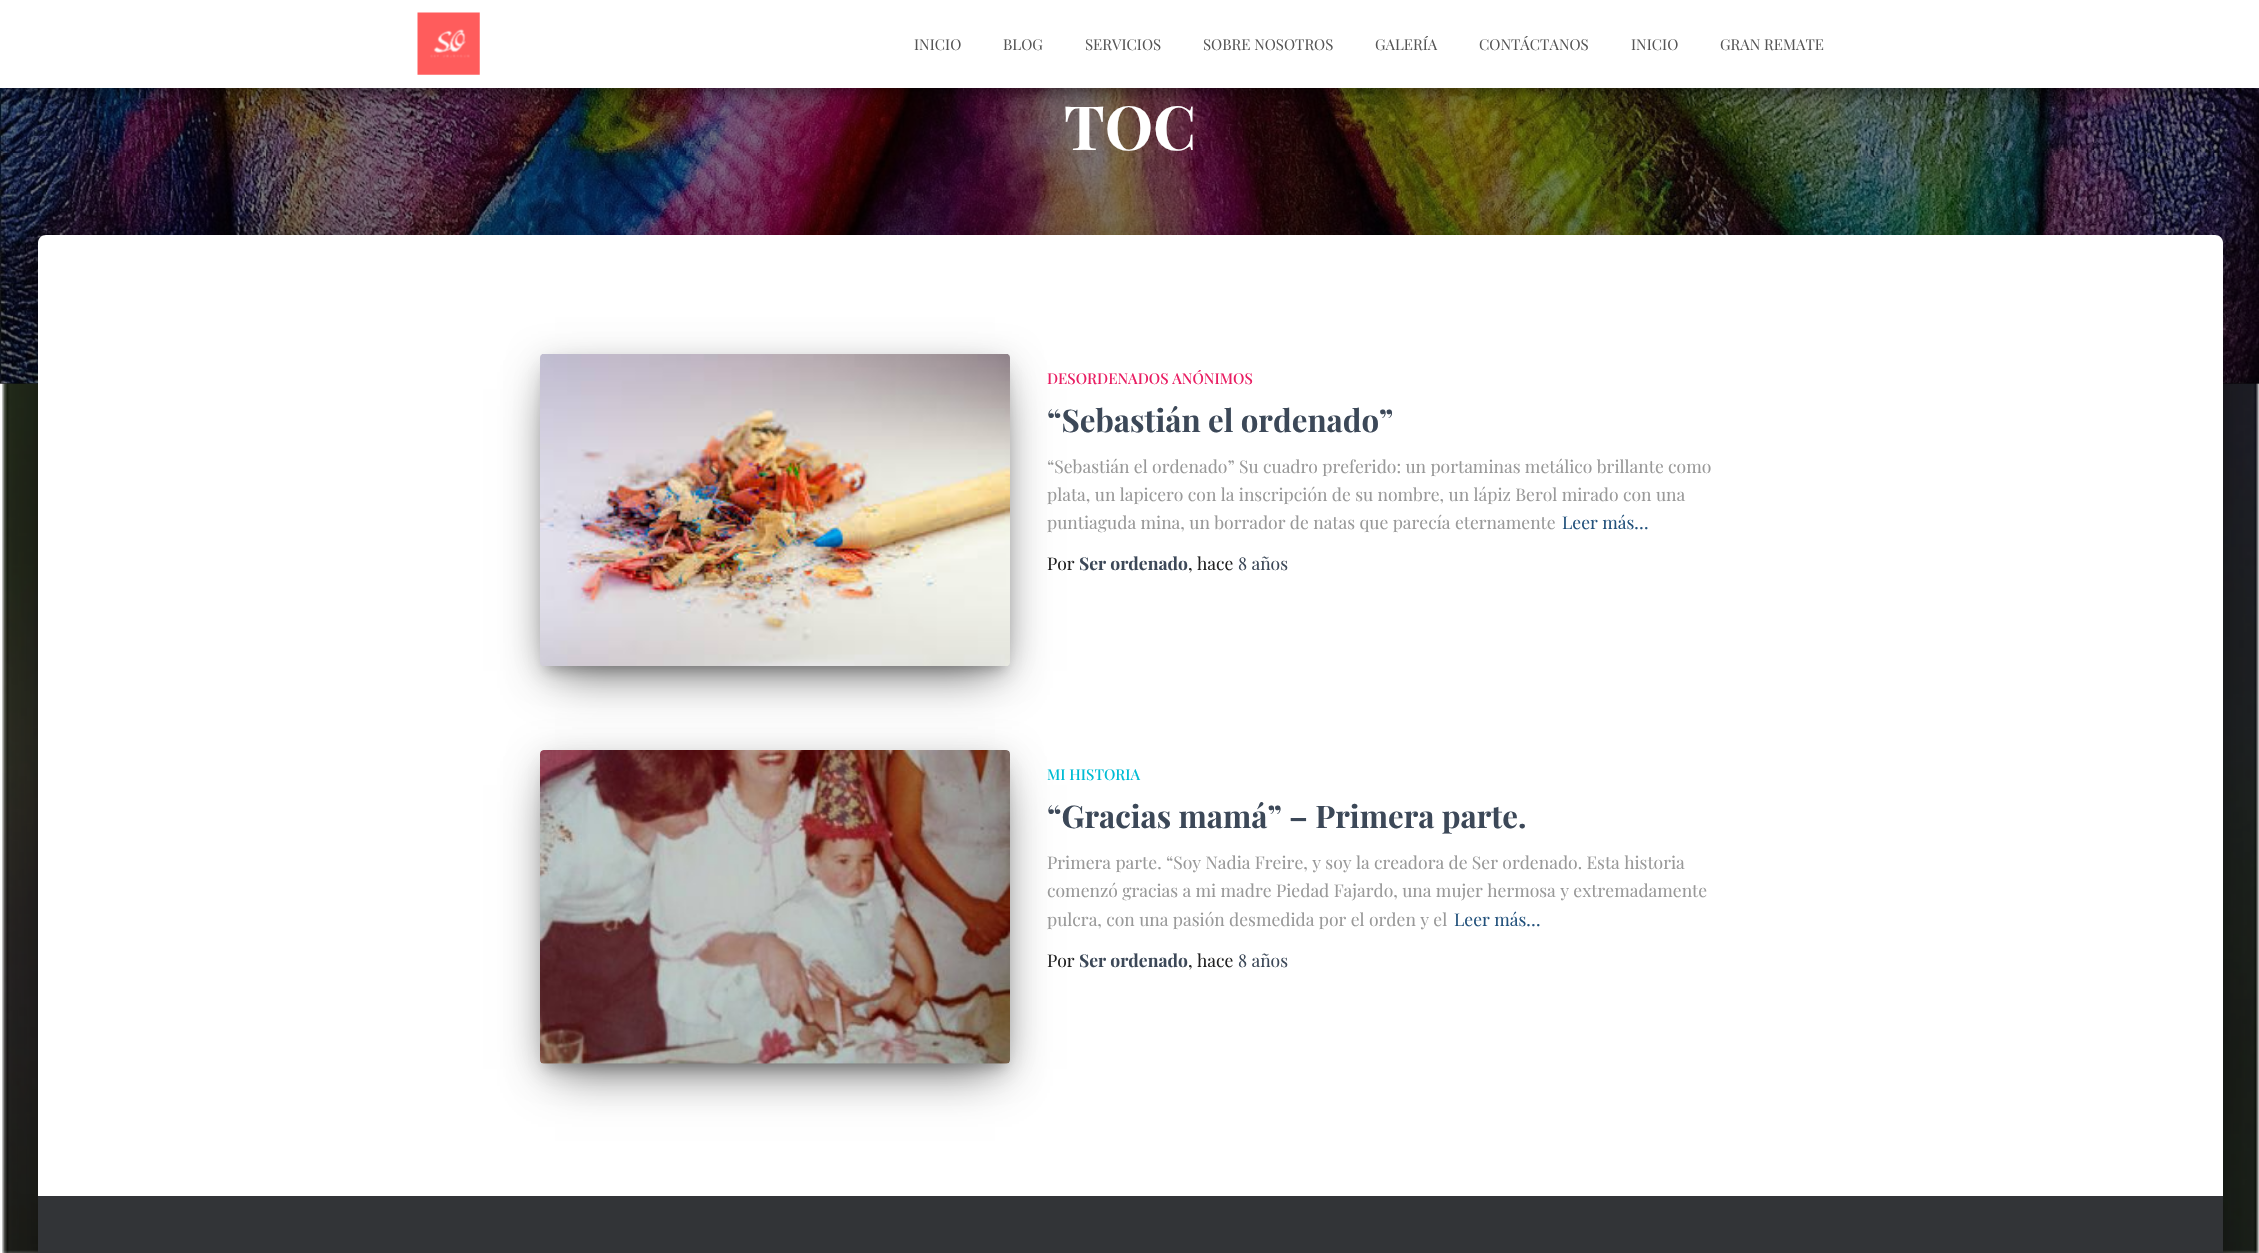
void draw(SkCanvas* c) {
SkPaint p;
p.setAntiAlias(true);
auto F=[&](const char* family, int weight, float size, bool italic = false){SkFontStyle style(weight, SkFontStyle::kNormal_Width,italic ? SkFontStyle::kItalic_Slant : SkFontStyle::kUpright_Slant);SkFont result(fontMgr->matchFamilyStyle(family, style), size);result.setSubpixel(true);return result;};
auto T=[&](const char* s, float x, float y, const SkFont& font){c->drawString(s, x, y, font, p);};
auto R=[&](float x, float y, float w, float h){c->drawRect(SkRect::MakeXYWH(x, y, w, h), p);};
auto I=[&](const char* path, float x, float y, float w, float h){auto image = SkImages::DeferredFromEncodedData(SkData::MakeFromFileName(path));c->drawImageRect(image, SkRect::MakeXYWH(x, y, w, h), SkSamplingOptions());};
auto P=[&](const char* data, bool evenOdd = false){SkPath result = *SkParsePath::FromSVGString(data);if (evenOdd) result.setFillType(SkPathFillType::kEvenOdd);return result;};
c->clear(0xffffffff);
I("1.png",0,383,2259,870);
I("3.png",0,88,2259,296);
p.setColor(0x80000000);
R(0,88,2259,296);
p.setColor(0x33000000);
p.setMaskFilter(SkMaskFilter::MakeBlur(kNormal_SkBlurStyle, 6));
c->drawRect(SkRect::MakeXYWH(6,16,2248,75),p);
p.setMaskFilter(nullptr);
p.setColor(0x1f000000);
p.setMaskFilter(SkMaskFilter::MakeBlur(kNormal_SkBlurStyle, 12.5));
c->drawRect(SkRect::MakeXYWH(0,4,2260,87),p);
p.setMaskFilter(nullptr);
p.setColor(0x6b000000);
p.setMaskFilter(SkMaskFilter::MakeBlur(kNormal_SkBlurStyle, 12.5));
c->drawRect(SkRect::MakeXYWH(15,28,2230,57),p);
p.setMaskFilter(nullptr);
p.setColor(0xffffffff);
R(0,0,2259,88);
I("2.png",417,12,63,63);
auto f1 = F("Playfair Display",400,15);
p.setColor(0xff555555);
T("INICIO",914,50,f1);
T("BLOG",1003,50,f1);
T("SERVICIOS",1085,50,f1);
T("SOBRE NOSOTROS",1203,50,f1);
T("GALERÍA",1375,50,f1);
T("CONTÁCTANOS",1479,50,f1);
T("INICIO",1631,50,f1);
T("GRAN REMATE",1720,50,f1);
auto f2 = F("Playfair Display",700,61);
p.setColor(0xffffffff);
T("TOC",1064,150,f2);
p.setColor(0x33000000);
p.setMaskFilter(SkMaskFilter::MakeBlur(kNormal_SkBlurStyle, 6));
c->drawRoundRect(SkRect::MakeXYWH(44,251,2172,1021),1,1,p);
p.setMaskFilter(nullptr);
p.setColor(0x1f000000);
p.setMaskFilter(SkMaskFilter::MakeBlur(kNormal_SkBlurStyle, 19));
c->drawRoundRect(SkRect::MakeXYWH(31,236,2198,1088),14,14,p);
p.setMaskFilter(nullptr);
p.setColor(0x24000000);
p.setMaskFilter(SkMaskFilter::MakeBlur(kNormal_SkBlurStyle, 15));
c->drawRoundRect(SkRect::MakeXYWH(35,253,2190,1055),10,10,p);
p.setMaskFilter(nullptr);
p.setColor(0xffffffff);
c->drawPath(P("M46 235h2169c4.5 0 8 3.5 8 8v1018h-2185v-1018c0-4.5 3.5-8 8-8z"),p);
p.setColor(0x33000000);
p.setMaskFilter(SkMaskFilter::MakeBlur(kNormal_SkBlurStyle, 6));
c->drawRect(SkRect::MakeXYWH(546,370,458,300),p);
p.setMaskFilter(nullptr);
p.setColor(0x1f000000);
p.setMaskFilter(SkMaskFilter::MakeBlur(kNormal_SkBlurStyle, 15.5));
c->drawRoundRect(SkRect::MakeXYWH(540,359,470,312),4,4,p);
p.setMaskFilter(nullptr);
p.setColor(0x8f000000);
p.setMaskFilter(SkMaskFilter::MakeBlur(kNormal_SkBlurStyle, 24));
c->drawRect(SkRect::MakeXYWH(555,389,440,282),p);
p.setMaskFilter(nullptr);
I("4.png",540,354,470,312);
auto f3 = F("Playfair Display",500,15);
p.setColor(0xffe91e63);
T("DESORDENADOS ANÓNIMOS",1047,384,f3);
auto f4 = F("Playfair Display",700,31.25);
p.setColor(0xff3c4858);
T("“Sebastián el ordenado”",1047,432,f4);
auto f5 = F("Playfair Display",400,17.5);
p.setColor(0xff999999);
T("“Sebastián el ordenado” Su cuadro preferido: un portaminas metálico brillante como",1047,473,f5);
T("plata, un lapicero con la inscripción de su nombre, un lápiz Berol mirado con una",1047,501,f5);
T("puntiaguda mina, un borrador de natas que parecía eternamente",1047,529,f5);
p.setColor(0xff23527c);
T("Leer más…",1562,529,f5);
p.setColor(0xff212121);
T("Por",1047,570,f5);
auto f6 = F("Playfair Display",700,17.5);
p.setColor(0xff3c4858);
T("Ser ordenado",1079,570,f6);
p.setColor(0xff212121);
T(", hace",1188,570,f5);
p.setColor(0xff3c4858);
T("8 años",1238,570,f5);
p.setColor(0x33000000);
p.setMaskFilter(SkMaskFilter::MakeBlur(kNormal_SkBlurStyle, 6));
c->drawRect(SkRect::MakeXYWH(546,766,458,302),p);
p.setMaskFilter(nullptr);
p.setColor(0x1f000000);
p.setMaskFilter(SkMaskFilter::MakeBlur(kNormal_SkBlurStyle, 15.5));
c->drawRoundRect(SkRect::MakeXYWH(540,755,470,314),4,4,p);
p.setMaskFilter(nullptr);
p.setColor(0x8f000000);
p.setMaskFilter(SkMaskFilter::MakeBlur(kNormal_SkBlurStyle, 24));
c->drawRect(SkRect::MakeXYWH(555,785,440,284),p);
p.setMaskFilter(nullptr);
I("5.png",540,750,470,314);
p.setColor(0xff00bcd4);
T("MI HISTORIA",1047,780,f3);
p.setColor(0xff3c4858);
T("“Gracias mamá” – Primera parte.",1047,828,f4);
p.setColor(0xff999999);
T("Primera parte. “Soy Nadia Freire, y soy la creadora de Ser ordenado. Esta historia",1047,869,f5);
T("comenzó gracias a mi madre Piedad Fajardo, una mujer hermosa y extremadamente",1047,897,f5);
T("pulcra, con una pasión desmedida por el orden y el",1047,926,f5);
p.setColor(0xff23527c);
T("Leer más…",1454,926,f5);
p.setColor(0xff212121);
T("Por",1047,967,f5);
p.setColor(0xff3c4858);
T("Ser ordenado",1079,967,f6);
p.setColor(0xff212121);
T(", hace",1188,967,f5);
p.setColor(0xff3c4858);
T("8 años",1238,967,f5);
p.setColor(0xff323437);
R(38,1196,2185,57);
}
